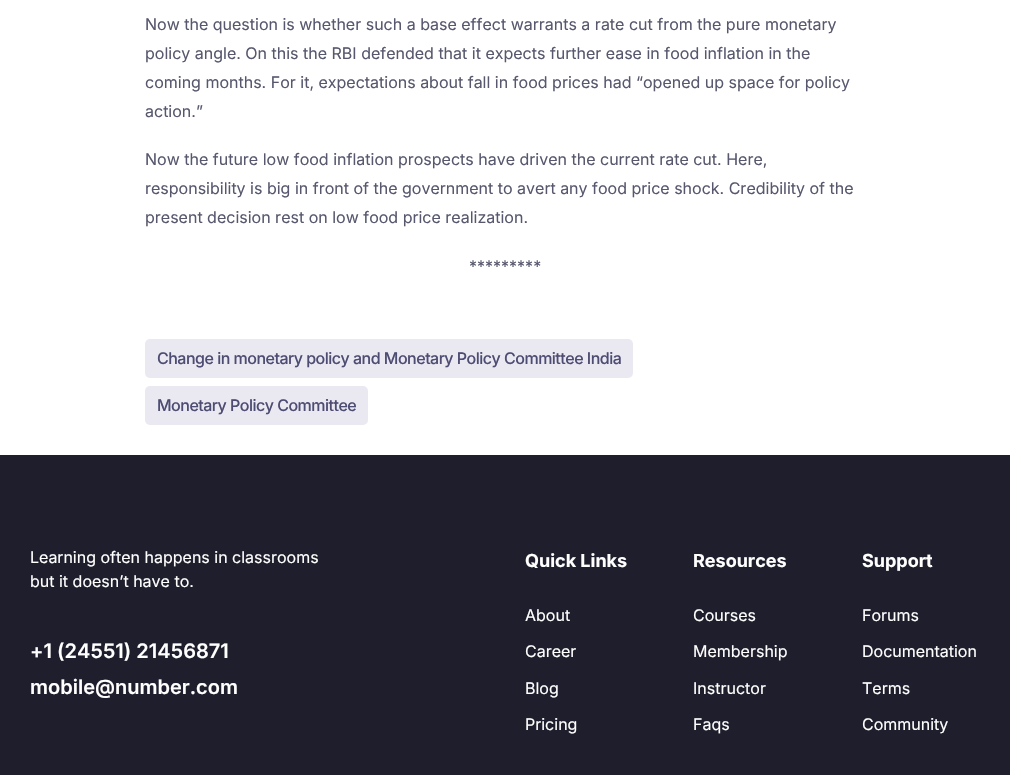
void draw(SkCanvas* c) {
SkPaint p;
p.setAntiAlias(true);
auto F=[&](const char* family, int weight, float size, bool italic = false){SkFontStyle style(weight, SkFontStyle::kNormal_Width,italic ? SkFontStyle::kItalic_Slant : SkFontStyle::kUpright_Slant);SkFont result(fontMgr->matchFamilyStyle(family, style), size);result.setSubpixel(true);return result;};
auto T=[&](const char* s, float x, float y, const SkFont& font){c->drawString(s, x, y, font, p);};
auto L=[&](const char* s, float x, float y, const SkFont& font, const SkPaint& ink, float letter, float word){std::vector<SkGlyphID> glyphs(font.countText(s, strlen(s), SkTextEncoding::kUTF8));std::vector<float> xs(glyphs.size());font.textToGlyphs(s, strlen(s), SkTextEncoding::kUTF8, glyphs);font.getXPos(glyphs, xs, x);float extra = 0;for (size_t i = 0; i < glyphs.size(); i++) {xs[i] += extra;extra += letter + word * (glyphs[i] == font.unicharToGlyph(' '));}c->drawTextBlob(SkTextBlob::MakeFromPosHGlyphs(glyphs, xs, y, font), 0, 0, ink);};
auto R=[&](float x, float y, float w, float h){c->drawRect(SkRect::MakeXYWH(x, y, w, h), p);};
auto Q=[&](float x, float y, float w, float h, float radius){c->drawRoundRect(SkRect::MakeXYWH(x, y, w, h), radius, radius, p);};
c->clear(0xffffffff);
auto f1 = F("Inter",400,16);
p.setColor(0xff57586e);
T("Now the question is whether such a base effect warrants a rate cut from the pure monetary",145,30,f1);
T("policy angle. On this the RBI defended that it expects further ease in food inflation in the",145,59,f1);
T("coming months. For it, expectations about fall in food prices had “opened up space for policy",145,88,f1);
T("action.”",145,117,f1);
T("Now the future low food inflation prospects have driven the current rate cut. Here,",145,165,f1);
T("responsibility is big in front of the government to avert any food price shock. Credibility of the",145,194,f1);
T("present decision rest on low food price realization.",145,223,f1);
T("*********",469,272,f1);
p.setColor(0xffeae9f2);
Q(145,339,488,39,5);
auto f2 = F("Inter",500,16);
p.setColor(0xff4d4c72);
L("Change in monetary policy and Monetary Policy Committee India",157,364,f2,p,-.5,0);
p.setColor(0xffeae9f2);
Q(145,386,223,39,5);
p.setColor(0xff4d4c72);
L("Monetary Policy Committee",157,411,f2,p,-.5,0);
p.setColor(0xff1e1e2c);
R(0,455,1010,320);
p.setColor(0xffffffff);
T("Learning often happens in classrooms",30,563,f1);
T("but it doesn’t have to.",30,587,f1);
auto f3 = F("Inter",600,20);
T("+1 (24551) 21456871",30,658,f3);
T("mobile@number.com",30,694,f3);
auto f4 = F("Inter",700,18);
T("Quick Links",525,567,f4);
T("About",525,621,f1);
T("Career",525,657,f1);
T("Blog",525,694,f1);
T("Pricing",525,730,f1);
T("Resources",693,567,f4);
T("Courses",693,621,f1);
T("Membership",693,657,f1);
T("Instructor",693,694,f1);
T("Faqs",693,730,f1);
T("Support",862,567,f4);
T("Forums",862,621,f1);
T("Documentation",862,657,f1);
T("Terms",862,694,f1);
T("Community",862,730,f1);
}
